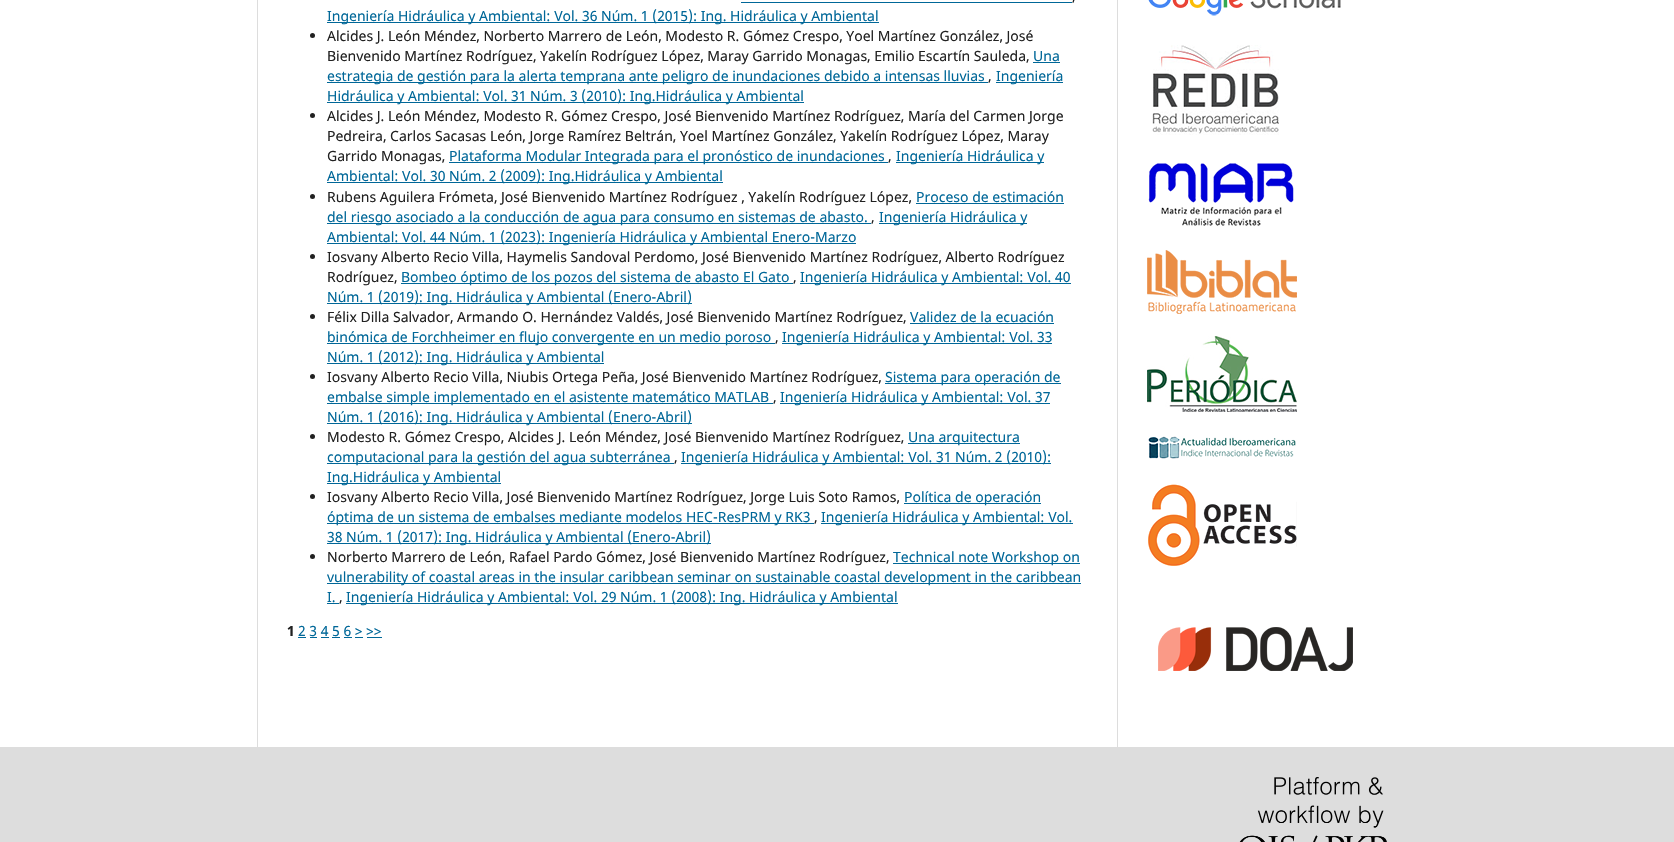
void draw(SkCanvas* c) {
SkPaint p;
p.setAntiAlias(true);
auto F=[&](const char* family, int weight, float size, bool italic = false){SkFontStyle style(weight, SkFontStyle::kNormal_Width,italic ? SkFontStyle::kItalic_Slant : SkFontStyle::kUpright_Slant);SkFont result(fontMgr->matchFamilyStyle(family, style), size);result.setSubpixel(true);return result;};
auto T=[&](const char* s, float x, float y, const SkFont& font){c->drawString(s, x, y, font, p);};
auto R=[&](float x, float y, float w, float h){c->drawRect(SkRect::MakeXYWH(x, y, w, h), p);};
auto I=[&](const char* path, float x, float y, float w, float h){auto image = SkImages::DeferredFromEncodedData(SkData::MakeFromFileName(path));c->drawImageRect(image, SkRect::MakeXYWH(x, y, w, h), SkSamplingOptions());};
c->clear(0xffffffff);
p.setColor(0xffdddddd);
R(257,0,1,747);
p.setColor(0xff006798);
R(741,2,331,1);
auto f1 = F("Noto Sans",400,14);
p.setColor(0xff212121);
T(",",1072,1,f1);
p.setColor(0xff006798);
R(327,22,552,1);
T("Ingeniería Hidráulica y Ambiental: Vol. 36 Núm. 1 (2015): Ing. Hidráulica y Ambiental",327,21,f1);
p.setColor(0xff212121);
c->drawCircle(312.5,35.5,2.5,p);
T("Alcides J. León Méndez, Norberto Marrero de León, Modesto R. Gómez Crespo, Yoel Martínez González, José",327,41,f1);
T("Bienvenido Martínez Rodríguez, Yakelín Rodríguez López, Maray Garrido Monagas, Emilio Escartín Sauleda,",327,61,f1);
p.setColor(0xff006798);
T("Una",1033,61,f1);
R(1033,62,27,1);
R(327,82,661,1);
T("estrategia de gestión para la alerta temprana ante peligro de inundaciones debido a intensas lluvias",327,81,f1);
p.setColor(0xff212121);
T(",",988,81,f1);
p.setColor(0xff006798);
R(996,82,67,1);
T("Ingeniería",996,81,f1);
R(327,102,477,1);
T("Hidráulica y Ambiental: Vol. 31 Núm. 3 (2010): Ing.Hidráulica y Ambiental",327,101,f1);
p.setColor(0xff212121);
c->drawCircle(312.5,115.5,2.5,p);
T("Alcides J. León Méndez, Modesto R. Gómez Crespo, José Bienvenido Martínez Rodríguez, María del Carmen Jorge",327,121,f1);
T("Pedreira, Carlos Sacasas León, Jorge Ramírez Beltrán, Yoel Martínez González, Yakelín Rodríguez López, Maray",327,141,f1);
T("Garrido Monagas,",327,161,f1);
p.setColor(0xff006798);
R(449,162,439,1);
T("Plataforma Modular Integrada para el pronóstico de inundaciones",449,161,f1);
p.setColor(0xff212121);
T(",",888,161,f1);
p.setColor(0xff006798);
R(896,162,148,1);
T("Ingeniería Hidráulica y",896,161,f1);
R(327,182,396,1);
T("Ambiental: Vol. 30 Núm. 2 (2009): Ing.Hidráulica y Ambiental",327,181,f1);
p.setColor(0xff212121);
c->drawCircle(312.5,196.5,2.5,p);
T("Rubens Aguilera Frómeta, José Bienvenido Martínez Rodríguez , Yakelín Rodríguez López,",327,202,f1);
p.setColor(0xff006798);
T("Proceso de estimación",916,202,f1);
R(916,203,148,1);
R(327,223,544,1);
T("del riesgo asociado a la conducción de agua para consumo en sistemas de abasto.",327,222,f1);
p.setColor(0xff212121);
T(",",871,222,f1);
p.setColor(0xff006798);
R(879,223,148,1);
T("Ingeniería Hidráulica y",879,222,f1);
R(327,243,529,1);
T("Ambiental: Vol. 44 Núm. 1 (2023): Ingeniería Hidráulica y Ambiental Enero-Marzo",327,242,f1);
p.setColor(0xff212121);
c->drawCircle(312.5,256.5,2.5,p);
T("Iosvany Alberto Recio Villa, Haymelis Sandoval Perdomo, José Bienvenido Martínez Rodríguez, Alberto Rodríguez",327,262,f1);
T("Rodríguez,",327,282,f1);
p.setColor(0xff006798);
R(401,283,392,1);
T("Bombeo óptimo de los pozos del sistema de abasto El Gato",401,282,f1);
p.setColor(0xff212121);
T(",",793,282,f1);
p.setColor(0xff006798);
R(800,283,271,1);
T("Ingeniería Hidráulica y Ambiental: Vol. 40",800,282,f1);
R(327,303,365,1);
T("Núm. 1 (2019): Ing. Hidráulica y Ambiental (Enero-Abril)",327,302,f1);
p.setColor(0xff212121);
c->drawCircle(312.5,316.5,2.5,p);
T("Félix Dilla Salvador, Armando O. Hernández Valdés, José Bienvenido Martínez Rodríguez,",327,322,f1);
p.setColor(0xff006798);
T("Validez de la ecuación",910,322,f1);
R(910,323,144,1);
R(327,343,448,1);
T("binómica de Forchheimer en flujo convergente en un medio poroso",327,342,f1);
p.setColor(0xff212121);
T(",",775,342,f1);
p.setColor(0xff006798);
R(782,343,270,1);
T("Ingeniería Hidráulica y Ambiental: Vol. 33",782,342,f1);
R(327,363,277,1);
T("Núm. 1 (2012): Ing. Hidráulica y Ambiental",327,362,f1);
p.setColor(0xff212121);
c->drawCircle(312.5,376.5,2.5,p);
T("Iosvany Alberto Recio Villa, Niubis Ortega Peña, José Bienvenido Martínez Rodríguez,",327,382,f1);
p.setColor(0xff006798);
R(885,383,176,1);
T("Sistema para operación de",885,382,f1);
R(327,403,446,1);
T("embalse simple implementado en el asistente matemático MATLAB",327,402,f1);
p.setColor(0xff212121);
T(",",773,402,f1);
p.setColor(0xff006798);
R(780,403,270,1);
T("Ingeniería Hidráulica y Ambiental: Vol. 37",780,402,f1);
R(327,423,365,1);
T("Núm. 1 (2016): Ing. Hidráulica y Ambiental (Enero-Abril)",327,422,f1);
p.setColor(0xff212121);
c->drawCircle(312.5,436.5,2.5,p);
T("Modesto R. Gómez Crespo, Alcides J. León Méndez, José Bienvenido Martínez Rodríguez,",327,442,f1);
p.setColor(0xff006798);
R(908,443,112,1);
T("Una arquitectura",908,442,f1);
R(327,463,347,1);
T("computacional para la gestión del agua subterránea",327,462,f1);
p.setColor(0xff212121);
T(",",674,462,f1);
p.setColor(0xff006798);
R(681,463,370,1);
T("Ingeniería Hidráulica y Ambiental: Vol. 31 Núm. 2 (2010):",681,462,f1);
R(327,483,174,1);
T("Ing.Hidráulica y Ambiental",327,482,f1);
p.setColor(0xff212121);
c->drawCircle(312.5,496.5,2.5,p);
T("Iosvany Alberto Recio Villa, José Bienvenido Martínez Rodríguez, Jorge Luis Soto Ramos,",327,502,f1);
p.setColor(0xff006798);
R(904,503,137,1);
T("Política de operación",904,502,f1);
R(327,523,487,1);
T("óptima de un sistema de embalses mediante modelos HEC-ResPRM y RK3",327,522,f1);
p.setColor(0xff212121);
T(",",814,522,f1);
p.setColor(0xff006798);
R(821,523,252,1);
T("Ingeniería Hidráulica y Ambiental: Vol.",821,522,f1);
R(327,543,384,1);
T("38 Núm. 1 (2017): Ing. Hidráulica y Ambiental (Enero-Abril)",327,542,f1);
p.setColor(0xff212121);
c->drawCircle(312.5,556.5,2.5,p);
T("Norberto Marrero de León, Rafael Pardo Gómez, José Bienvenido Martínez Rodríguez,",327,562,f1);
p.setColor(0xff006798);
R(893,563,187,1);
T("Technical note Workshop on",893,562,f1);
R(327,583,754,1);
T("vulnerability of coastal areas in the insular caribbean seminar on sustainable coastal development in the caribbean",327,582,f1);
T("I.",327,602,f1);
R(327,603,12,1);
p.setColor(0xff212121);
T(",",339,602,f1);
p.setColor(0xff006798);
R(346,603,552,1);
T("Ingeniería Hidráulica y Ambiental: Vol. 29 Núm. 1 (2008): Ing. Hidráulica y Ambiental",346,602,f1);
auto f2 = F("Noto Sans",700,14);
p.setColor(0xff212121);
T("1",287,636,f2);
p.setColor(0xff006798);
T("2 3 4 5 6 > >>",298,636,f1);
R(298,637,8,1);
R(310,637,7,1);
R(321,637,8,1);
R(332,637,8,1);
R(344,637,8,1);
R(355,637,8,1);
R(367,637,15,1);
p.setColor(0xffdddddd);
R(1117,0,1,747);
I("1.png",1148,0,193,16);
I("2.png",1152,45,127,90);
I("3.png",1148,163,146,63);
I("4.png",1147,250,150,64);
I("5.png",1147,336,150,76);
I("6.png",1148,436,148,23);
I("7.png",1148,484,149,82);
I("8.png",1158,627,195,44);
R(0,747,1674,95);
I("9.png",1239,777,148,65);
}
